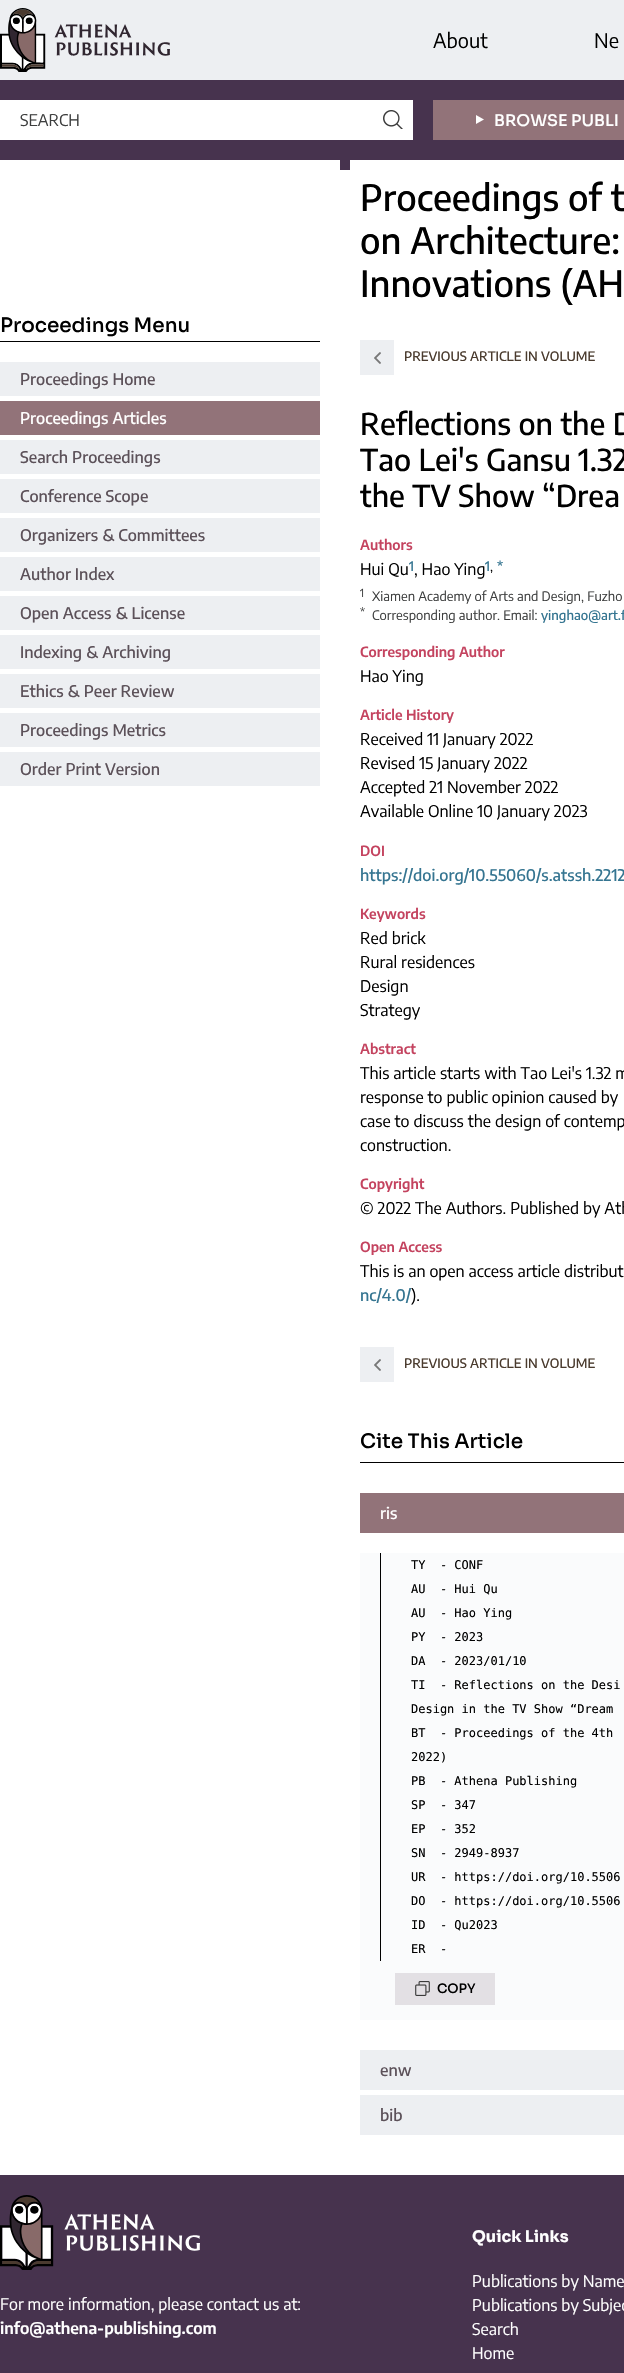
void draw(SkCanvas* c) {
SkPaint p;
p.setAntiAlias(true);
auto F=[&](const char* family, int weight, float size, bool italic = false){SkFontStyle style(weight, SkFontStyle::kNormal_Width,italic ? SkFontStyle::kItalic_Slant : SkFontStyle::kUpright_Slant);SkFont result(fontMgr->matchFamilyStyle(family, style), size);result.setSubpixel(true);return result;};
auto T=[&](const char* s, float x, float y, const SkFont& font){c->drawString(s, x, y, font, p);};
auto R=[&](float x, float y, float w, float h){c->drawRect(SkRect::MakeXYWH(x, y, w, h), p);};
auto I=[&](const char* path, float x, float y, float w, float h){auto image = SkImages::DeferredFromEncodedData(SkData::MakeFromFileName(path));c->drawImageRect(image, SkRect::MakeXYWH(x, y, w, h), SkSamplingOptions());};
auto P=[&](const char* data, bool evenOdd = false){SkPath result = *SkParsePath::FromSVGString(data);if (evenOdd) result.setFillType(SkPathFillType::kEvenOdd);return result;};
c->clear(0xffffffff);
p.setColor(0xffedeff2);
R(0,0,624,80);
I("1.png",0,8,170,64);
auto f1 = F("Encode Sans",400,20);
p.setColor(0xff000000);
T("About",433,48,f1);
T("Ne",594,48,f1);
p.setColor(0xff47334e);
R(0,80,624,80);
p.setColor(0xffffffff);
R(0,100,413,40);
auto f2 = F("Encode Sans",400,16);
p.setColor(0xff3e3f3f);
T("SEARCH",20,126,f2);
I("2.png",383,110,20,19);
p.setColor(0xff927379);
R(433,100,191,40);
p.setColor(0xffffffff);
c->drawPath(P("M476 115v9l8-4.5z"),p);
auto f3 = F("Sora",500,16);
T("BROWSE PUBLI",494,126,f3);
p.setColor(0xff000000);
R(0,341,320,1);
auto f4 = F("Sora",500,20);
T("Proceedings Menu",0,332,f4);
p.setColor(0xffedeff2);
R(0,362,320,34);
auto f5 = F("Encode Sans",500,16);
p.setColor(0xff5c5159);
T("Proceedings Home",20,385,f5);
p.setColor(0xff927379);
R(0,401,320,34);
p.setColor(0xffffffff);
T("Proceedings Articles",20,424,f5);
p.setColor(0xffedeff2);
R(0,440,320,34);
p.setColor(0xff5c5159);
T("Search Proceedings",20,463,f5);
p.setColor(0xffedeff2);
R(0,479,320,34);
p.setColor(0xff5c5159);
T("Conference Scope",20,502,f5);
p.setColor(0xffedeff2);
R(0,518,320,34);
p.setColor(0xff5c5159);
T("Organizers & Committees",20,541,f5);
p.setColor(0xffedeff2);
R(0,557,320,34);
p.setColor(0xff5c5159);
T("Author Index",20,580,f5);
p.setColor(0xffedeff2);
R(0,596,320,34);
p.setColor(0xff5c5159);
T("Open Access & License",20,619,f5);
p.setColor(0xffedeff2);
R(0,635,320,34);
p.setColor(0xff5c5159);
T("Indexing & Archiving",20,658,f5);
p.setColor(0xffedeff2);
R(0,674,320,34);
p.setColor(0xff5c5159);
T("Ethics & Peer Review",20,697,f5);
p.setColor(0xffedeff2);
R(0,713,320,34);
p.setColor(0xff5c5159);
T("Proceedings Metrics",20,736,f5);
p.setColor(0xffedeff2);
R(0,752,320,34);
p.setColor(0xff5c5159);
T("Order Print Version",20,775,f5);
p.setColor(0xff47334e);
R(340,160,10,10);
auto f6 = F("Encode Sans",500,36);
p.setColor(0xff000000);
T("Proceedings of t",360,211,f6);
T("on Architecture:",360,254,f6);
T("Innovations (AH",360,297,f6);
p.setColor(0xffedeff2);
R(360,340,34,35);
I("3.png",374,352,7,12);
auto f7 = F("Encode Sans",500,13);
p.setColor(0xff4a3b2e);
T("PREVIOUS ARTICLE IN VOLUME",404,361,f7);
auto f8 = F("Encode Sans",500,30);
p.setColor(0xff000000);
T("Reflections on the D",360,435,f8);
T("Tao Lei's Gansu 1.32",360,471,f8);
T("the TV Show “Drea",360,507,f8);
auto f9 = F("Encode Sans",600,14);
p.setColor(0xffc4435f);
T("Authors",360,550,f9);
p.setColor(0xff000000);
T("Hui Qu",360,575,f2);
p.setColor(0xff357591);
T("1",409,571,f7);
p.setColor(0xff000000);
T(", Hao Ying",414,575,f2);
p.setColor(0xff357591);
T("1",485,571,f7);
auto f10 = F("Encode Sans",400,13);
p.setColor(0xff000000);
T(",",490,571,f10);
p.setColor(0xff357591);
T("*",497,571,f7);
auto f11 = F("Encode Sans",400,11);
p.setColor(0xff3e3f3f);
T("1",360,597,f11);
T("Xiamen Academy of Arts and Design, Fuzho",372,601,f10);
T("*",360,616,f11);
T("Corresponding author. Email:",372,620,f10);
p.setColor(0xff357591);
T("yinghao@art.f",541,620,f7);
p.setColor(0xffc4435f);
T("Corresponding Author",360,657,f9);
p.setColor(0xff000000);
T("Hao Ying",360,682,f2);
p.setColor(0xffc4435f);
T("Article History",360,720,f9);
p.setColor(0xff000000);
T("Received 11 January 2022",360,745,f2);
T("Revised 15 January 2022",360,769,f2);
T("Accepted 21 November 2022",360,793,f2);
T("Available Online 10 January 2023",360,817,f2);
p.setColor(0xffc4435f);
T("DOI",360,856,f9);
p.setColor(0xff357591);
T("https://doi.org/10.55060/s.atssh.2212",360,881,f5);
p.setColor(0xffc4435f);
T("Keywords",360,919,f9);
p.setColor(0xff000000);
T("Red brick",360,944,f2);
T("Rural residences",360,968,f2);
T("Design",360,992,f2);
T("Strategy",360,1016,f2);
p.setColor(0xffc4435f);
T("Abstract",360,1054,f9);
p.setColor(0xff000000);
T("This article starts with Tao Lei's 1.32 m",360,1079,f2);
T("response to public opinion caused by",360,1103,f2);
T("case to discuss the design of contemp",360,1127,f2);
T("construction.",360,1151,f2);
p.setColor(0xffc4435f);
T("Copyright",360,1189,f9);
p.setColor(0xff000000);
T("© 2022 The Authors. Published by Ath",360,1214,f2);
p.setColor(0xffc4435f);
T("Open Access",360,1252,f9);
p.setColor(0xff000000);
T("This is an open access article distribut",360,1277,f2);
p.setColor(0xff357591);
T("nc/4.0/",360,1301,f5);
p.setColor(0xff000000);
T(").",411,1301,f2);
p.setColor(0xffedeff2);
R(360,1347,34,35);
I("3.png",374,1359,7,12);
p.setColor(0xff4a3b2e);
T("PREVIOUS ARTICLE IN VOLUME",404,1368,f7);
p.setColor(0xff000000);
R(360,1462,264,1);
T("Cite This Article",360,1448,f4);
p.setColor(0xff927379);
R(360,1493,264,40);
p.setColor(0xffffffff);
T("ris",380,1519,f5);
p.setColor(0xfffafbfc);
R(360,1553,264,467);
p.setColor(0xff000000);
R(380,1553,1,408);
auto f12 = F("DejaVu Sans Mono",400,12);
T("TY  - CONF",411,1569,f12);
T("AU  - Hui Qu",411,1593,f12);
T("AU  - Hao Ying",411,1617,f12);
T("PY  - 2023",411,1641,f12);
T("DA  - 2023/01/10",411,1665,f12);
T("TI  - Reflections on the Desi",411,1689,f12);
T("Design in the TV Show “Dream",411,1713,f12);
T("BT  - Proceedings of the 4th",411,1737,f12);
T("2022)",411,1761,f12);
T("PB  - Athena Publishing",411,1785,f12);
T("SP  - 347",411,1809,f12);
T("EP  - 352",411,1833,f12);
T("SN  - 2949-8937",411,1857,f12);
T("UR  - https://doi.org/10.5506",411,1881,f12);
T("DO  - https://doi.org/10.5506",411,1905,f12);
T("ID  - Qu2023",411,1929,f12);
T("ER  -",411,1953,f12);
p.setColor(0xffe3e0e4);
R(395,1973,100,32);
I("4.png",415,1981,15,15);
auto f13 = F("Sora",500,13);
p.setColor(0xff000000);
T("COPY",437,1993,f13);
p.setColor(0xffedeff2);
R(360,2050,264,40);
p.setColor(0xff5c5159);
T("enw",380,2076,f5);
p.setColor(0xffedeff2);
R(360,2095,264,40);
p.setColor(0xff5c5159);
T("bib",380,2121,f5);
p.setColor(0xff47334e);
R(0,2175,624,198);
I("5.png",0,2195,200,75);
p.setColor(0xffffffff);
T("For more information, please contact us at:",0,2310,f2);
auto f14 = F("Encode Sans",600,16);
T("info@athena-publishing.com",0,2334,f14);
auto f15 = F("Sora",700,16);
T("Quick Links",472,2242,f15);
T("Publications by Name",472,2287,f2);
T("Publications by Subjec",472,2311,f2);
T("Search",472,2335,f2);
T("Home",472,2359,f2);
}
